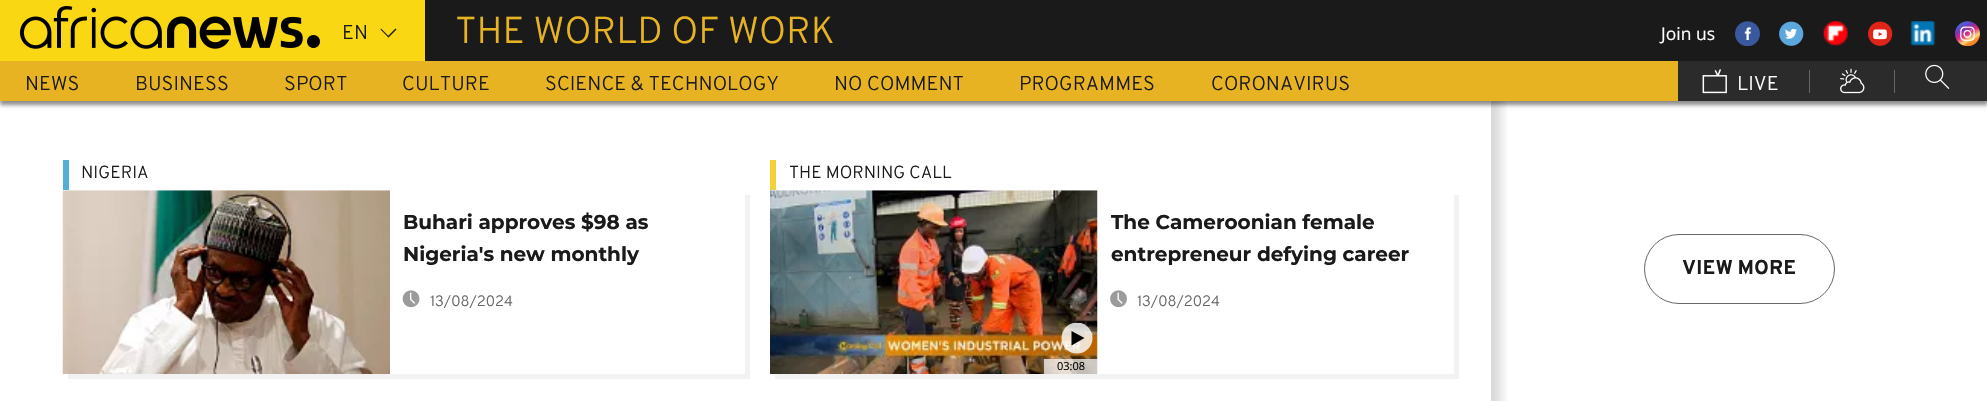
void draw(SkCanvas* c) {
SkPaint p;
p.setAntiAlias(true);
auto F=[&](const char* family, int weight, float size, bool italic = false){SkFontStyle style(weight, SkFontStyle::kNormal_Width,italic ? SkFontStyle::kItalic_Slant : SkFontStyle::kUpright_Slant);SkFont result(fontMgr->matchFamilyStyle(family, style), size);result.setSubpixel(true);return result;};
auto T=[&](const char* s, float x, float y, const SkFont& font){c->drawString(s, x, y, font, p);};
auto R=[&](float x, float y, float w, float h){c->drawRect(SkRect::MakeXYWH(x, y, w, h), p);};
auto I=[&](const char* path, float x, float y, float w, float h){auto image = SkImages::DeferredFromEncodedData(SkData::MakeFromFileName(path));c->drawImageRect(image, SkRect::MakeXYWH(x, y, w, h), SkSamplingOptions());};
auto P=[&](const char* data, bool evenOdd = false){SkPath result = *SkParsePath::FromSVGString(data);if (evenOdd) result.setFillType(SkPathFillType::kEvenOdd);return result;};
c->clear(0xffffffff);
c->save();
c->clipRect(SkRect::MakeXYWH(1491,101,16,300));
p.setColor(0x26000000);
p.setMaskFilter(SkMaskFilter::MakeBlur(kNormal_SkBlurStyle, 5));
c->drawRect(SkRect::MakeXYWH(35,-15,1466,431),p);
p.setMaskFilter(nullptr);
c->restore();
p.setColor(0xff1a1a1a);
R(425,0,1562,61);
p.setColor(0x73000000);
p.setMaskFilter(SkMaskFilter::MakeBlur(kNormal_SkBlurStyle, 2));
c->drawRect(SkRect::MakeXYWH(0,65,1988,40),p);
p.setMaskFilter(nullptr);
p.setColor(0xfff9d713);
R(0,0,425,61);
I("1.png",20,6,300,43);
auto f1 = F("Overpass",300,20);
p.setColor(0xff1a1a1a);
T("EN",342,39,f1);
c->drawPath(P("M387.5 36.5l8-8l1 1l-8 8z"),p);
c->drawPath(P("M380.5 29.5l.5-1l8 8l-.5 1z"),p);
auto f2 = F("Overpass",300,37.5);
p.setColor(0xffe7b322);
T("THE WORLD OF WORK",455,43,f2);
auto f3 = F("Open Sans",400,17.5);
p.setColor(0xffffffff);
T("Join us",1661,40,f3);
I("2.png",1735,21,25,25);
I("3.png",1779,21,25,25);
I("4.png",1823,21,25,25);
I("5.png",1868,21,25,25);
I("6.png",1910,21,26,25);
I("7.png",1955,21,25,25);
p.setColor(0xffe7b322);
R(0,61,1678,40);
p.setColor(0xff1a1a1a);
T("NEWS",25,90,f1);
T("BUSINESS",135,90,f1);
T("SPORT",284,90,f1);
T("CULTURE",402,90,f1);
T("SCIENCE & TECHNOLOGY",545,90,f1);
T("NO COMMENT",834,90,f1);
T("PROGRAMMES",1019,90,f1);
T("CORONAVIRUS",1211,90,f1);
p.setColor(0xff2b2b2b);
R(1678,61,309,40);
I("8.png",1702,69,25,25);
p.setColor(0xffffffff);
T("LIVE",1737,90,f1);
p.setColor(0xff666666);
R(1809,70,1,23);
I("9.png",1840,68,25,26);
R(1894,70,1,23);
I("10.png",1925,64,25,25);
p.setColor(0xfff2f2f2);
c->drawPath(P("M68 374v5h682v-184h-5v179z"),p);
p.setColor(0xff52b0d6);
R(63,160,6,30);
auto f4 = F("Overpass",300,17.5);
p.setColor(0xff1a1a1a);
T("NIGERIA",81,178,f4);
auto f5 = F("Montserrat",100,20);
T("Buhari approves $98 as",403,229,f5);
T("Nigeria's new monthly",403,261,f5);
I("11.png",402,290,18,18);
auto f6 = F("Overpass",300,15);
p.setColor(0xff666666);
T("13/08/2024",430,306,f6);
I("12.png",62,190,328,184);
p.setColor(0xfff2f2f2);
c->drawPath(P("M775 374v5h684v-184h-5v179z"),p);
p.setColor(0xfff0d138);
R(770,160,6,30);
p.setColor(0xff1a1a1a);
T("THE MORNING CALL",789,178,f4);
T("The Cameroonian female",1111,229,f5);
T("entrepreneur defying career",1111,261,f5);
I("13.png",1110,290,17,18);
p.setColor(0xff666666);
T("13/08/2024",1137,306,f6);
I("14.png",770,190,328,184);
c->save();
c->clipRect(SkRect::MakeXYWH(1061,323,32,31));
p.setColor(0xccffffff);
c->drawCircle(1077,338,15.5,p);
c->restore();
p.setColor(0xff000000);
c->drawPath(P("M1084.5 338l-13 7.5v-14.5z"),p);
p.setColor(0xb3ffffff);
R(1044,359,54,15);
auto f7 = F("Open Sans",400,11);
p.setColor(0xff000000);
T("03:08",1057,370,f7);
p.setStroke(true);
p.setStrokeWidth(1);
p.setColor(0xff666666);
c->drawRoundRect(SkRect::MakeXYWH(1644.5,234.5,190,69),34.5,34.5,p);
auto f8 = F("Overpass",700,20);
p.setStroke(false);
p.setColor(0xff1a1a1a);
T("VIEW MORE",1682,274,f8);
}
